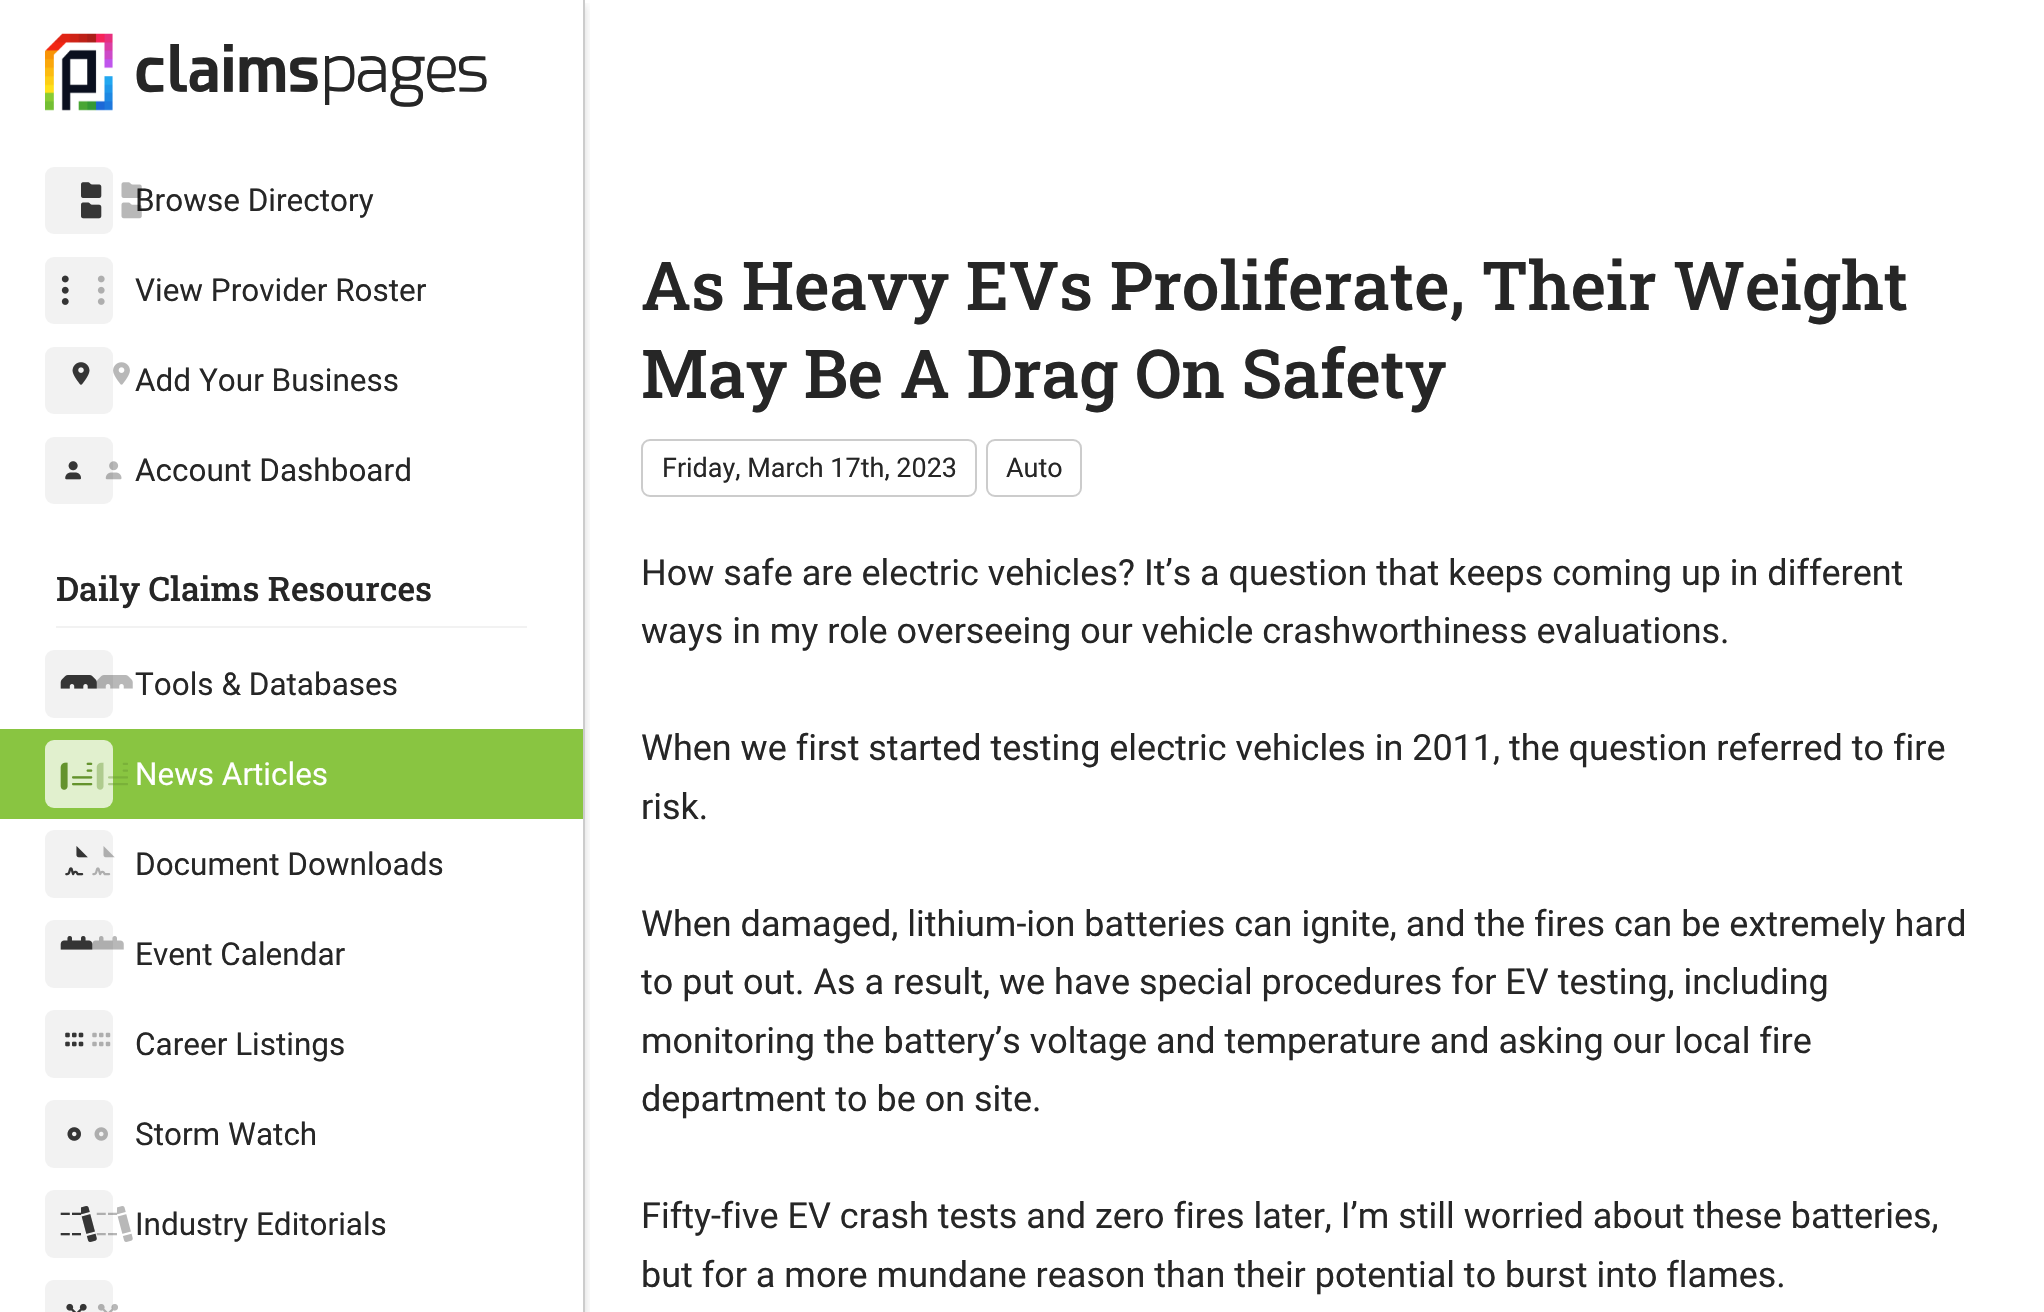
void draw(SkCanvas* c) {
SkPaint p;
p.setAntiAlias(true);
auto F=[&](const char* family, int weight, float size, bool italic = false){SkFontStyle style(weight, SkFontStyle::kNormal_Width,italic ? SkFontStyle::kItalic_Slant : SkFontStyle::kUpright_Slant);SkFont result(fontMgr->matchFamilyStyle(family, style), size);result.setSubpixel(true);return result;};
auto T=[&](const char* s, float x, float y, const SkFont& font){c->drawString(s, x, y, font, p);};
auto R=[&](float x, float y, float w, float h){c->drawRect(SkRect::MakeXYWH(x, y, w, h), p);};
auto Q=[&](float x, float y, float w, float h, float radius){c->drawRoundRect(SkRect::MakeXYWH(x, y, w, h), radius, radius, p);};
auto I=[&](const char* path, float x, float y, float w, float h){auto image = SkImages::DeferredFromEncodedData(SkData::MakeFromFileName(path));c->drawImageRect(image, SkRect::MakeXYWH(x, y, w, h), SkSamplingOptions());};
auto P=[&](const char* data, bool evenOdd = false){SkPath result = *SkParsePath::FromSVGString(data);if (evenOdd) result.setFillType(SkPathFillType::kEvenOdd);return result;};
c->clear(0xffffffff);
c->save();
c->clipRect(SkRect::MakeXYWH(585,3,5,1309));
p.setColor(0x26000000);
p.setMaskFilter(SkMaskFilter::MakeBlur(kNormal_SkBlurStyle, 4.5));
c->drawRect(SkRect::MakeXYWH(0,5,585,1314),p);
p.setMaskFilter(nullptr);
c->restore();
p.setColor(0xffcccccc);
R(583,0,2,1312);
I("1.png",45,33,68,78);
auto f1 = F("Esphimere",700,63);
p.setColor(0xff262626);
T("claims",135,92,f1);
auto f2 = F("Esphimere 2",700,63);
T("pages",321,92,f2);
p.setColor(0xfff2f2f2);
Q(45,167,68,67,9);
I("2.png",81,182,21,37);
auto f3 = F("Roboto",400,31.5);
p.setColor(0xff262626);
T("Browse Directory",135,211,f3);
I("3.png",81,182,61,37);
p.setColor(0xfff2f2f2);
Q(45,257,68,67,9);
I("4.png",61,275,8,30);
I("5.png",61,275,44,30);
p.setColor(0xff262626);
T("View Provider Roster",135,301,f3);
p.setColor(0xfff2f2f2);
Q(45,347,68,67,9);
I("6.png",72,362,18,23);
I("7.png",72,362,58,23);
p.setColor(0xff262626);
T("Add Your Business",135,391,f3);
p.setColor(0xfff2f2f2);
Q(45,437,68,67,9);
I("8.png",65,461,16,19);
I("9.png",65,461,57,19);
p.setColor(0xff262626);
T("Account Dashboard",135,481,f3);
auto f4 = F("Roboto Slab",500,33.75);
T("Daily Claims Resources",56,601,f4);
p.setColor(0xfff2f2f2);
R(56,626,471,2);
Q(45,650,68,68,9);
I("10.png",60,675,37,14);
I("11.png",60,675,73,14);
p.setColor(0xff262626);
T("Tools & Databases",135,695,f3);
p.setColor(0xff89c541);
R(0,729,583,90);
p.setColor(0xffe1f0ce);
Q(45,740,68,68,9);
I("12.png",60,762,33,28);
I("13.png",60,762,68,28);
p.setColor(0xffffffff);
T("News Articles",135,785,f3);
p.setColor(0xfff2f2f2);
Q(45,830,68,68,9);
I("14.png",65,846,23,30);
I("15.png",65,846,50,30);
p.setColor(0xff262626);
T("Document Downloads",135,875,f3);
p.setColor(0xfff2f2f2);
Q(45,920,68,68,9);
I("16.png",60,936,33,14);
I("17.png",60,936,64,14);
p.setColor(0xff262626);
T("Event Calendar",135,965,f3);
p.setColor(0xfff2f2f2);
Q(45,1010,68,68,9);
I("18.png",65,1032,19,15);
I("19.png",65,1032,46,15);
p.setColor(0xff262626);
T("Career Listings",135,1055,f3);
p.setColor(0xfff2f2f2);
Q(45,1100,68,68,9);
I("20.png",67,1127,14,14);
I("21.png",67,1127,41,14);
p.setColor(0xff262626);
T("Storm Watch",135,1145,f3);
p.setColor(0xfff2f2f2);
Q(45,1190,68,68,9);
I("22.png",60,1206,37,36);
I("23.png",60,1206,73,36);
p.setColor(0xff262626);
T("Industry Editorials",135,1235,f3);
p.setColor(0xfff2f2f2);
c->drawPath(P("M54 1280h50c5 0 9 4 9 9v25h-68v-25c0-5 4-9 9-9z"),p);
I("24.png",66,1303,21,9);
I("25.png",66,1304,52,8);
auto f5 = F("Roboto Slab",500,67.5);
p.setColor(0xff262626);
T("As Heavy EVs Proliferate, Their Weight",641,310,f5);
T("May Be A Drag On Safety",641,398,f5);
p.setStroke(true);
p.setStrokeWidth(2);
p.setColor(0xffcccccc);
c->drawRoundRect(SkRect::MakeXYWH(642,440,334,56),8,8,p);
auto f6 = F("Roboto",400,27);
p.setStroke(false);
p.setColor(0xff262626);
T("Friday, March 17th, 2023",662,477,f6);
p.setStroke(true);
p.setColor(0xffcccccc);
c->drawRoundRect(SkRect::MakeXYWH(987,440,94,56),8,8,p);
p.setStroke(false);
p.setColor(0xff262626);
T("Auto",1006,477,f6);
auto f7 = F("Roboto",400,36);
T("How safe are electric vehicles? It’s a question that keeps coming up in different",641,585,f7);
T("ways in my role overseeing our vehicle crashworthiness evaluations.",641,643,f7);
T("When we first started testing electric vehicles in 2011, the question referred to fire",641,760,f7);
T("risk.",641,819,f7);
T("When damaged, lithium-ion batteries can ignite, and the fires can be extremely hard",641,936,f7);
T("to put out. As a result, we have special procedures for EV testing, including",641,994,f7);
T("monitoring the battery’s voltage and temperature and asking our local fire",641,1053,f7);
T("department to be on site.",641,1111,f7);
T("Fifty-five EV crash tests and zero fires later, I’m still worried about these batteries,",641,1228,f7);
T("but for a more mundane reason than their potential to burst into flames.",641,1287,f7);
}
